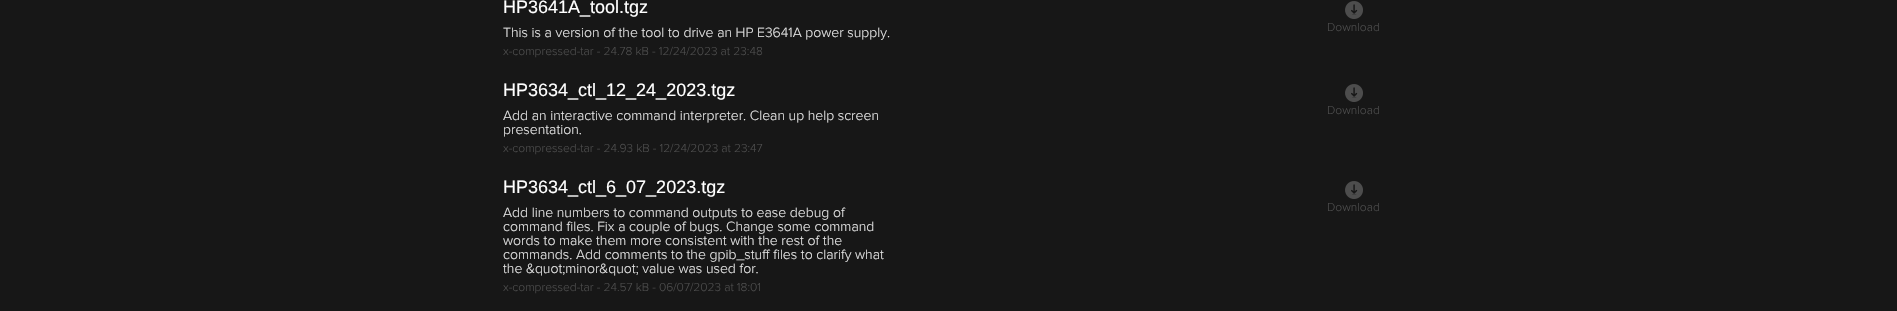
void draw(SkCanvas* c) {
SkPaint p;
p.setAntiAlias(true);
auto F=[&](const char* family, int weight, float size, bool italic = false){SkFontStyle style(weight, SkFontStyle::kNormal_Width,italic ? SkFontStyle::kItalic_Slant : SkFontStyle::kUpright_Slant);SkFont result(fontMgr->matchFamilyStyle(family, style), size);result.setSubpixel(true);return result;};
auto T=[&](const char* s, float x, float y, const SkFont& font){c->drawString(s, x, y, font, p);};
auto I=[&](const char* path, float x, float y, float w, float h){auto image = SkImages::DeferredFromEncodedData(SkData::MakeFromFileName(path));c->drawImageRect(image, SkRect::MakeXYWH(x, y, w, h), SkSamplingOptions());};
c->clear(0xff171717);
auto f1 = F("Liberation Sans",400,18);
p.setColor(0xffffffff);
T("HP3641A_tool.tgz",503,13,f1);
auto f2 = F("Proxima Nova",300,14);
p.setColor(0xffe6e6e6);
T("This is a version of the tool to drive an HP E3641A power supply.",503,37,f2);
auto f3 = F("Proxima Nova",300,12);
p.setColor(0xff4d4d4d);
T("x-compressed-tar - 24.78 kB - 12/24/2023 at 23:48",503,55,f3);
I("1.png",1345,1,18,18);
T("Download",1327,31,f3);
p.setColor(0xffffffff);
T("HP3634_ctl_12_24_2023.tgz",503,96,f1);
p.setColor(0xffe6e6e6);
T("Add an interactive command interpreter. Clean up help screen",503,120,f2);
T("presentation.",503,134,f2);
p.setColor(0xff4d4d4d);
T("x-compressed-tar - 24.93 kB - 12/24/2023 at 23:47",503,152,f3);
I("1.png",1345,84,18,18);
T("Download",1327,114,f3);
p.setColor(0xffffffff);
T("HP3634_ctl_6_07_2023.tgz",503,193,f1);
p.setColor(0xffe6e6e6);
T("Add line numbers to command outputs to ease debug of",503,217,f2);
T("command files. Fix a couple of bugs. Change some command",503,231,f2);
T("words to make them more consistent with the rest of the",503,245,f2);
T("commands. Add comments to the gpib_stuff files to clarify what",503,259,f2);
T("the &quot;minor&quot; value was used for.",503,273,f2);
p.setColor(0xff4d4d4d);
T("x-compressed-tar - 24.57 kB - 06/07/2023 at 18:01",503,291,f3);
I("1.png",1345,181,18,18);
T("Download",1327,211,f3);
}
